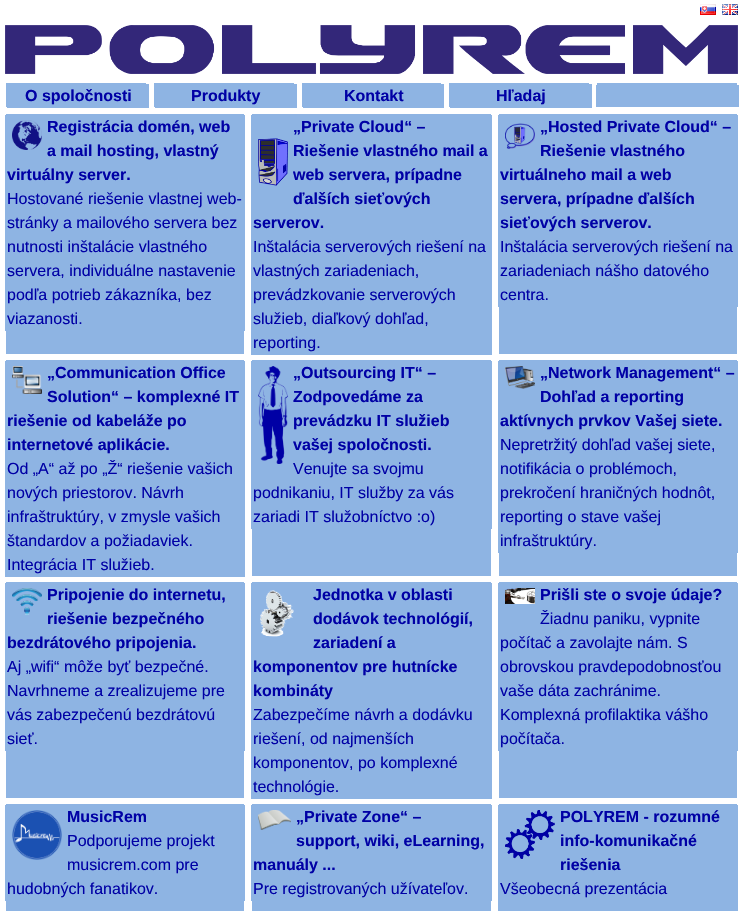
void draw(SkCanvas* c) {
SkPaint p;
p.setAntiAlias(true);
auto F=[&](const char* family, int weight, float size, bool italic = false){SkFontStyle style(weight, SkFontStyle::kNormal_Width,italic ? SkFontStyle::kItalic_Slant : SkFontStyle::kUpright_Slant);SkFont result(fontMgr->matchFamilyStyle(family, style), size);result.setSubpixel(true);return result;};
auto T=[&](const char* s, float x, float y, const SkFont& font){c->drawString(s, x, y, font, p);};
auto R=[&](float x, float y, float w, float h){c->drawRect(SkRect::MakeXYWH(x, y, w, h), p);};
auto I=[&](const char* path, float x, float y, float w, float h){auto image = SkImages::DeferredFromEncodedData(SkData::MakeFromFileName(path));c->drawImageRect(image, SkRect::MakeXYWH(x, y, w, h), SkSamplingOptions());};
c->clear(0xffffffff);
I("1.png",700,4,16,11);
I("2.png",722,4,16,11);
I("3.png",5,25,733,49);
p.setColor(0xff8eb4e3);
R(6,83,140,24);
R(7,84,142,24);
auto f1 = F("Liberation Sans",700,16);
p.setColor(0xff0000a5);
T("O spoločnosti",25,101,f1);
p.setColor(0xff8eb4e3);
R(154,83,140,24);
R(155,84,142,24);
p.setColor(0xff0000a5);
T("Produkty",191,101,f1);
p.setColor(0xff8eb4e3);
R(302,83,139,24);
R(303,84,141,24);
p.setColor(0xff0000a5);
T("Kontakt",344,101,f1);
p.setColor(0xff8eb4e3);
R(449,83,140,24);
R(450,84,142,24);
p.setColor(0xff0000a5);
T("Hľadaj",496,101,f1);
p.setColor(0xff8eb4e3);
R(597,83,140,2);
R(596,85,143,22);
R(6,114,238,240);
R(5,115,240,216);
I("4.png",12,120,30,30);
p.setColor(0xff0000a5);
T("Registrácia domén, web",47,132,f1);
T("a mail hosting, vlastný",47,156,f1);
T("virtuálny server.",7,180,f1);
auto f2 = F("Liberation Sans",400,16);
T("Hostované riešenie vlastnej web-",7,204,f2);
T("stránky a mailového servera bez",7,228,f2);
T("nutnosti inštalácie vlastného",7,252,f2);
T("servera, individuálne nastavenie",7,276,f2);
T("podľa potrieb zákazníka, bez",7,300,f2);
T("viazanosti.",7,324,f2);
p.setColor(0xff8eb4e3);
R(252,114,239,1);
R(251,115,241,240);
p.setColor(0xff0000a5);
T("„Private Cloud“ –",293,132,f1);
I("5.png",258,138,30,48);
T("Riešenie vlastného mail a",293,156,f1);
T("web servera, prípadne",293,180,f1);
T("ďalších sieťových",293,204,f1);
T("serverov.",253,228,f1);
T("Inštalácia serverových riešení na",253,252,f2);
T("vlastných zariadeniach,",253,276,f2);
T("prevádzkovanie serverových",253,300,f2);
T("služieb, diaľkový dohľad,",253,324,f2);
T("reporting.",253,348,f2);
p.setColor(0xff8eb4e3);
R(499,114,238,240);
R(498,115,240,192);
I("6.png",505,123,30,26);
p.setColor(0xff0000a5);
T("„Hosted Private Cloud“ –",540,132,f1);
T("Riešenie vlastného",540,156,f1);
T("virtuálneho mail a web",500,180,f1);
T("servera, prípadne ďalších",500,204,f1);
T("sieťových serverov.",500,228,f1);
T("Inštalácia serverových riešení na",500,252,f2);
T("zariadeniach nášho datového",500,276,f2);
T("centra.",500,300,f2);
p.setColor(0xff8eb4e3);
R(6,360,238,1);
R(5,361,240,216);
I("7.png",12,366,30,28);
p.setColor(0xff0000a5);
T("„Communication Office",47,378,f1);
T("Solution“ – komplexné IT",47,402,f1);
T("riešenie od kabeláže po",7,426,f1);
T("internetové aplikácie.",7,450,f1);
T("Od „A“ až po „Ž“ riešenie vašich",7,474,f2);
T("nových priestorov. Návrh",7,498,f2);
T("infraštruktúry, v zmysle vašich",7,522,f2);
T("štandardov a požiadaviek.",7,546,f2);
T("Integrácia IT služieb.",7,570,f2);
p.setColor(0xff8eb4e3);
R(252,360,239,216);
R(251,361,241,168);
I("8.png",258,366,30,98);
p.setColor(0xff0000a5);
T("„Outsourcing IT“ –",293,378,f1);
T("Zodpovedáme za",293,402,f1);
T("prevádzku IT služieb",293,426,f1);
T("vašej spoločnosti.",293,450,f1);
T("Venujte sa svojmu",293,474,f2);
T("podnikaniu, IT služby za vás",253,498,f2);
T("zariadi IT služobníctvo :o)",253,522,f2);
p.setColor(0xff8eb4e3);
R(499,360,238,216);
R(498,361,240,192);
I("9.png",505,366,30,23);
p.setColor(0xff0000a5);
T("„Network Management“ –",540,378,f1);
T("Dohľad a reporting",540,402,f1);
T("aktívnych prvkov Vašej siete.",500,426,f1);
T("Nepretržitý dohľad vašej siete,",500,450,f2);
T("notifikácia o problémoch,",500,474,f2);
T("prekročení hraničných hodnôt,",500,498,f2);
T("reporting o stave vašej",500,522,f2);
T("infraštruktúry.",500,546,f2);
p.setColor(0xff8eb4e3);
R(6,582,238,216);
R(5,583,240,168);
I("10.png",12,588,30,27);
p.setColor(0xff0000a5);
T("Pripojenie do internetu,",47,600,f1);
T("riešenie bezpečného",47,624,f1);
T("bezdrátového pripojenia.",7,648,f1);
T("Aj „wifi“ môže byť bezpečné.",7,672,f2);
T("Navrhneme a zrealizujeme pre",7,696,f2);
T("vás zabezpečenú bezdrátovú",7,720,f2);
T("sieť.",7,744,f2);
p.setColor(0xff8eb4e3);
R(252,582,239,1);
R(251,583,241,216);
I("11.png",260,590,34,47);
p.setColor(0xff0000a5);
T("Jednotka v oblasti",313,600,f1);
T("dodávok technológií,",313,624,f1);
T("zariadení a",313,648,f1);
T("komponentov pre hutnícke",253,672,f1);
T("kombináty",253,696,f1);
T("Zabezpečíme návrh a dodávku",253,720,f2);
T("riešení, od najmenších",253,744,f2);
T("komponentov, po komplexné",253,768,f2);
T("technológie.",253,792,f2);
p.setColor(0xff8eb4e3);
R(499,582,238,216);
R(498,583,240,168);
I("12.png",505,588,30,16);
p.setColor(0xff0000a5);
T("Prišli ste o svoje údaje?",540,600,f1);
T("Žiadnu paniku, vypnite",540,624,f2);
T("počítač a zavolajte nám. S",500,648,f2);
T("obrovskou pravdepodobnosťou",500,672,f2);
T("vaše dáta zachránime.",500,696,f2);
T("Komplexná profilaktika vášho",500,720,f2);
T("počítača.",500,744,f2);
p.setColor(0xff8eb4e3);
R(6,804,238,107);
R(5,805,240,96);
I("13.png",12,810,50,50);
p.setColor(0xff0000a5);
T("MusicRem",67,822,f1);
T("Podporujeme projekt",67,846,f2);
T("musicrem.com pre",67,870,f2);
T("hudobných fanatikov.",7,894,f2);
p.setColor(0xff8eb4e3);
R(252,804,239,107);
R(251,805,241,96);
I("14.png",258,810,33,20);
p.setColor(0xff0000a5);
T("„Private Zone“ –",296,822,f1);
T("support, wiki, eLearning,",296,846,f1);
T("manuály ...",253,870,f1);
T("Pre registrovaných užívateľov.",253,894,f2);
p.setColor(0xff8eb4e3);
R(499,804,238,1);
R(498,805,240,106);
I("15.png",505,810,50,49);
p.setColor(0xff0000a5);
T("POLYREM - rozumné",560,822,f1);
T("info-komunikačné",560,846,f1);
T("riešenia",560,870,f1);
T("Všeobecná prezentácia",500,894,f2);
}
